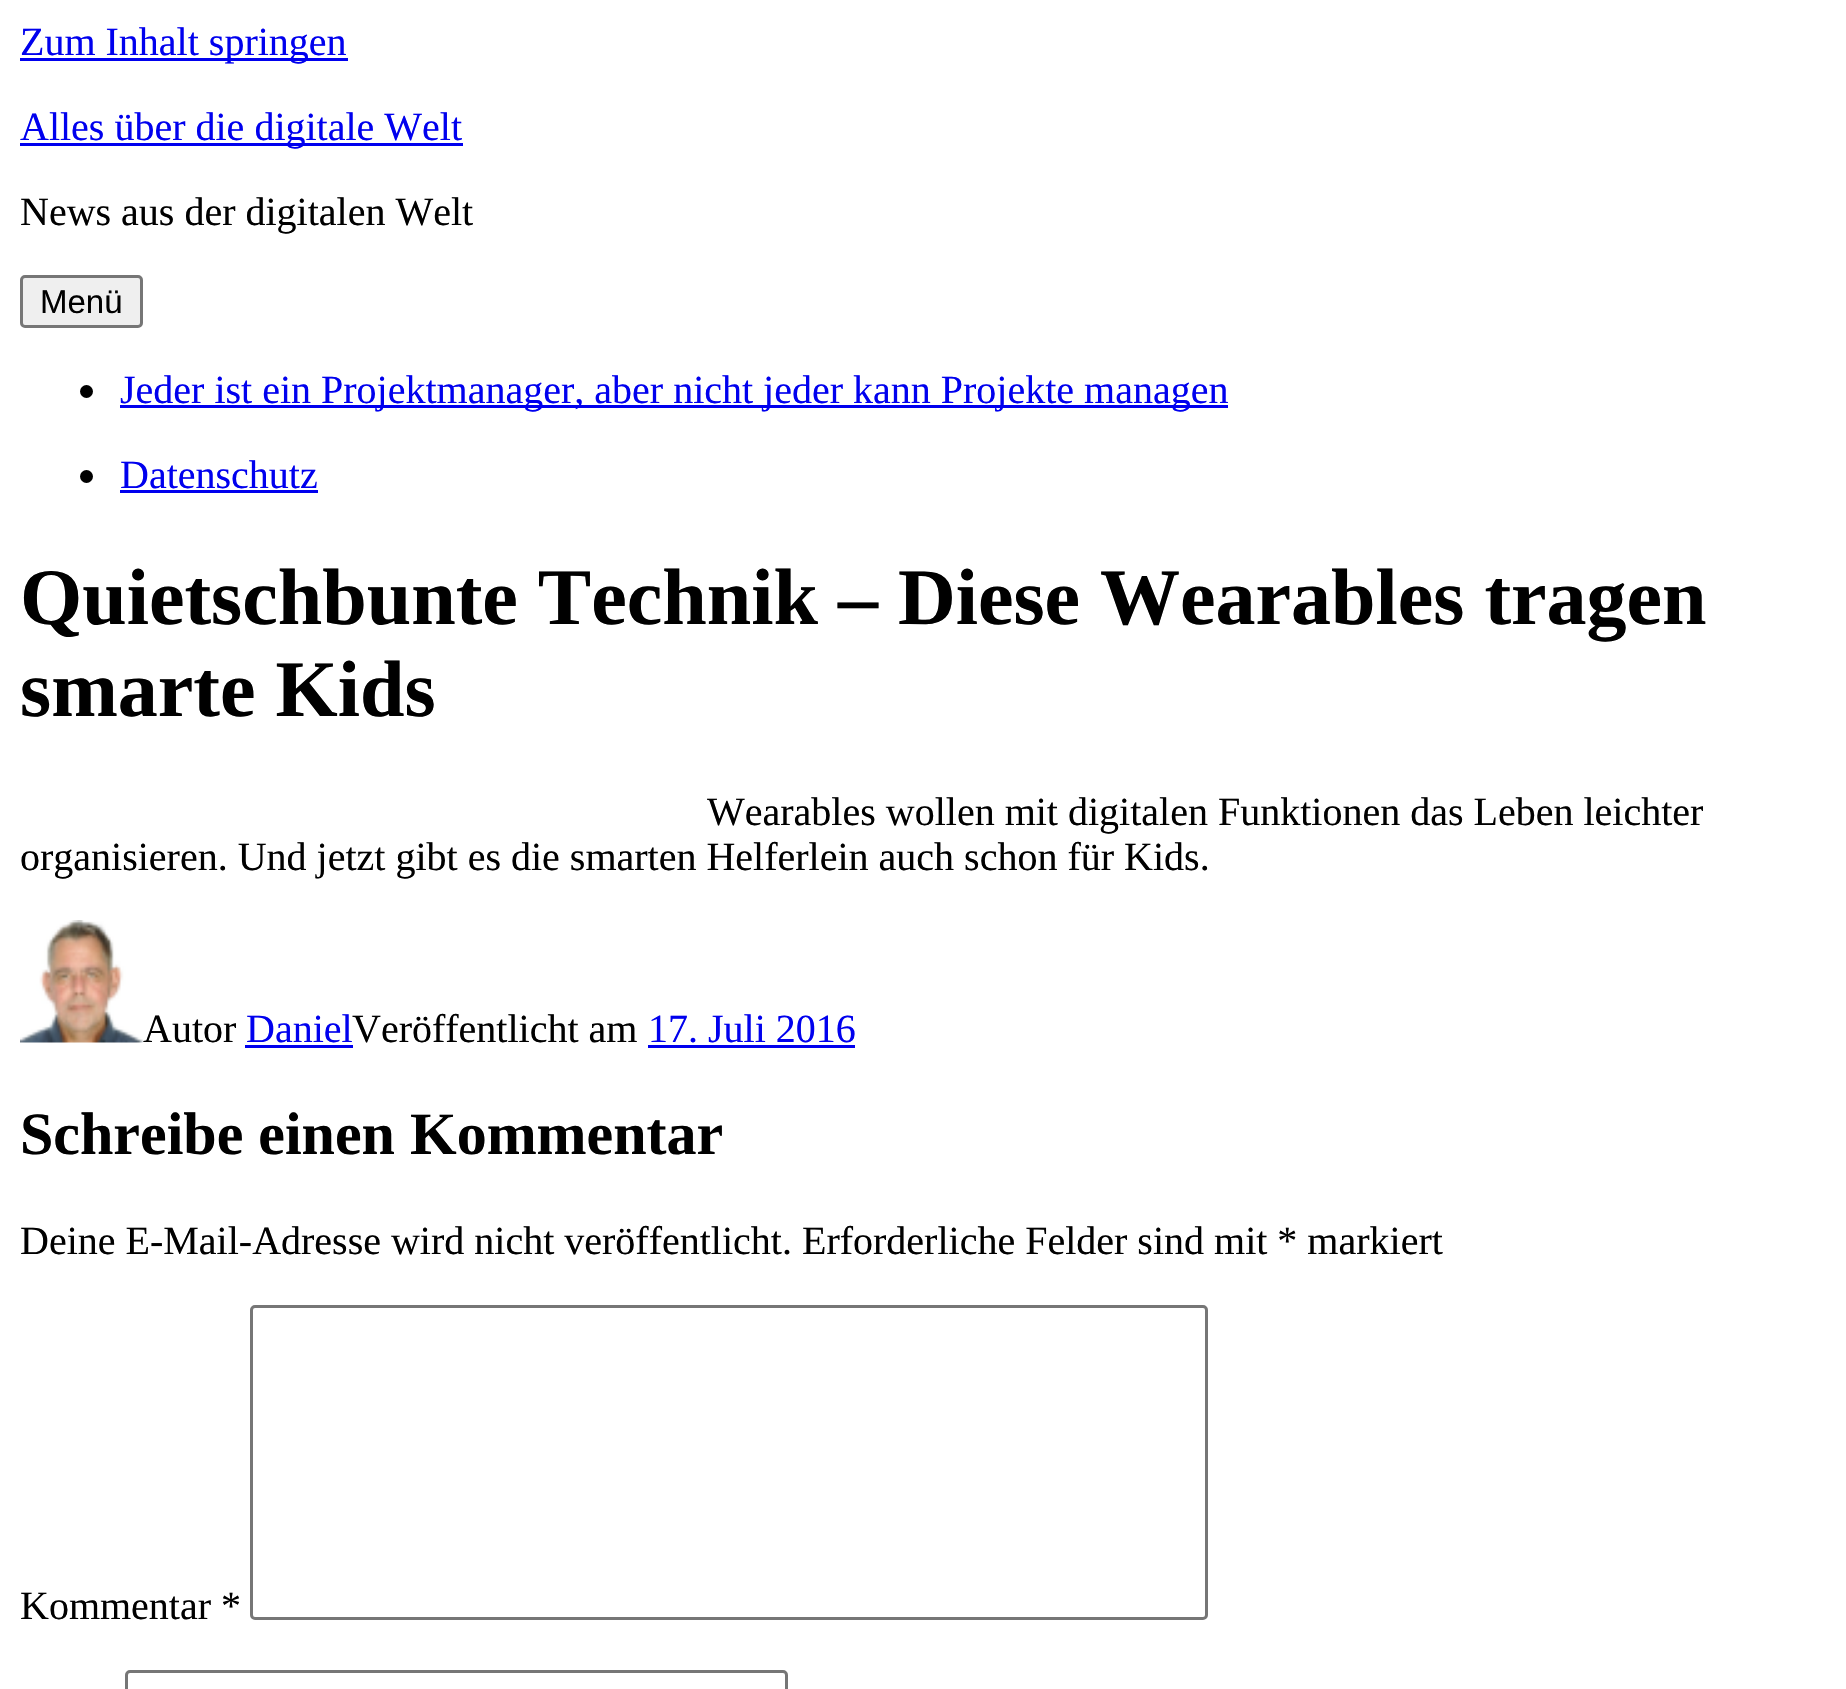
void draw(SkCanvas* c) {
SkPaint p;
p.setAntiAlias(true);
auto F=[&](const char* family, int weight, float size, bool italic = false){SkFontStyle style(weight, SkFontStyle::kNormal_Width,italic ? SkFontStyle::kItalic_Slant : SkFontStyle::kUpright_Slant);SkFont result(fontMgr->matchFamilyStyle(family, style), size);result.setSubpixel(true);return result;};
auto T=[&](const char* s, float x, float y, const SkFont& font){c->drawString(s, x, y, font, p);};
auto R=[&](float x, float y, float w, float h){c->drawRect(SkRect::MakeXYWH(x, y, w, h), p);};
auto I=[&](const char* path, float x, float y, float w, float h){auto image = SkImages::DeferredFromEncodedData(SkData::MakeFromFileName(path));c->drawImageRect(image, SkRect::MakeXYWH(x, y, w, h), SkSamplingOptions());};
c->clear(0xffffffff);
p.setColor(0xff0000ee);
R(20,58,328,3);
auto f1 = F("Liberation Serif",400,40);
T("Zum Inhalt springen",20,55,f1);
R(20,143,443,3);
T("Alles über die digitale Welt",20,140,f1);
p.setColor(0xff000000);
T("News aus der digitalen Welt",20,225,f1);
p.setColor(0xffefefef);
c->drawRoundRect(SkRect::MakeXYWH(21.5,276.5,120,50),3.5,3.5,p);
p.setStroke(true);
p.setStrokeWidth(3);
p.setColor(0xff767676);
c->drawRoundRect(SkRect::MakeXYWH(21.5,276.5,120,50),3.5,3.5,p);
auto f2 = F("Liberation Sans",400,33);
p.setStroke(false);
p.setColor(0xff000000);
T("Menü",40,313,f2);
c->drawCircle(86.5,391.5,6.5,p);
p.setColor(0xff0000ee);
R(120,405,1108,3);
T("Jeder ist ein Projektmanager, aber nicht jeder kann Projekte managen",120,403,f1);
p.setColor(0xff000000);
c->drawCircle(86.5,476.5,6.5,p);
p.setColor(0xff0000ee);
T("Datenschutz",120,488,f1);
R(120,490,198,3);
auto f3 = F("Liberation Serif",700,80);
p.setColor(0xff000000);
T("Quietschbunte Technik – Diese Wearables tragen",20,624,f3);
T("smarte Kids",20,716,f3);
T("Wearables wollen mit digitalen Funktionen das Leben leichter",707,825,f1);
T("organisieren. Und jetzt gibt es die smarten Helferlein auch schon für Kids.",20,870,f1);
I("1.png",20,920,123,123);
T("Autor",143,1042,f1);
p.setColor(0xff0000ee);
T("Daniel",246,1042,f1);
R(245,1045,108,3);
p.setColor(0xff000000);
T("Veröffentlicht am",352,1042,f1);
p.setColor(0xff0000ee);
T("17. Juli 2016",648,1042,f1);
R(648,1045,207,3);
auto f4 = F("Liberation Serif",700,60);
p.setColor(0xff000000);
T("Schreibe einen Kommentar",20,1154,f4);
T("Deine E-Mail-Adresse wird nicht veröffentlicht. Erforderliche Felder sind mit * markiert",20,1254,f1);
T("Kommentar *",20,1619,f1);
p.setStroke(true);
p.setColor(0xff767676);
c->drawRoundRect(SkRect::MakeXYWH(251.5,1306.5,955,312),3.5,3.5,p);
c->drawRoundRect(SkRect::MakeXYWH(126.5,1671.5,660,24),3.5,3.5,p);
}
